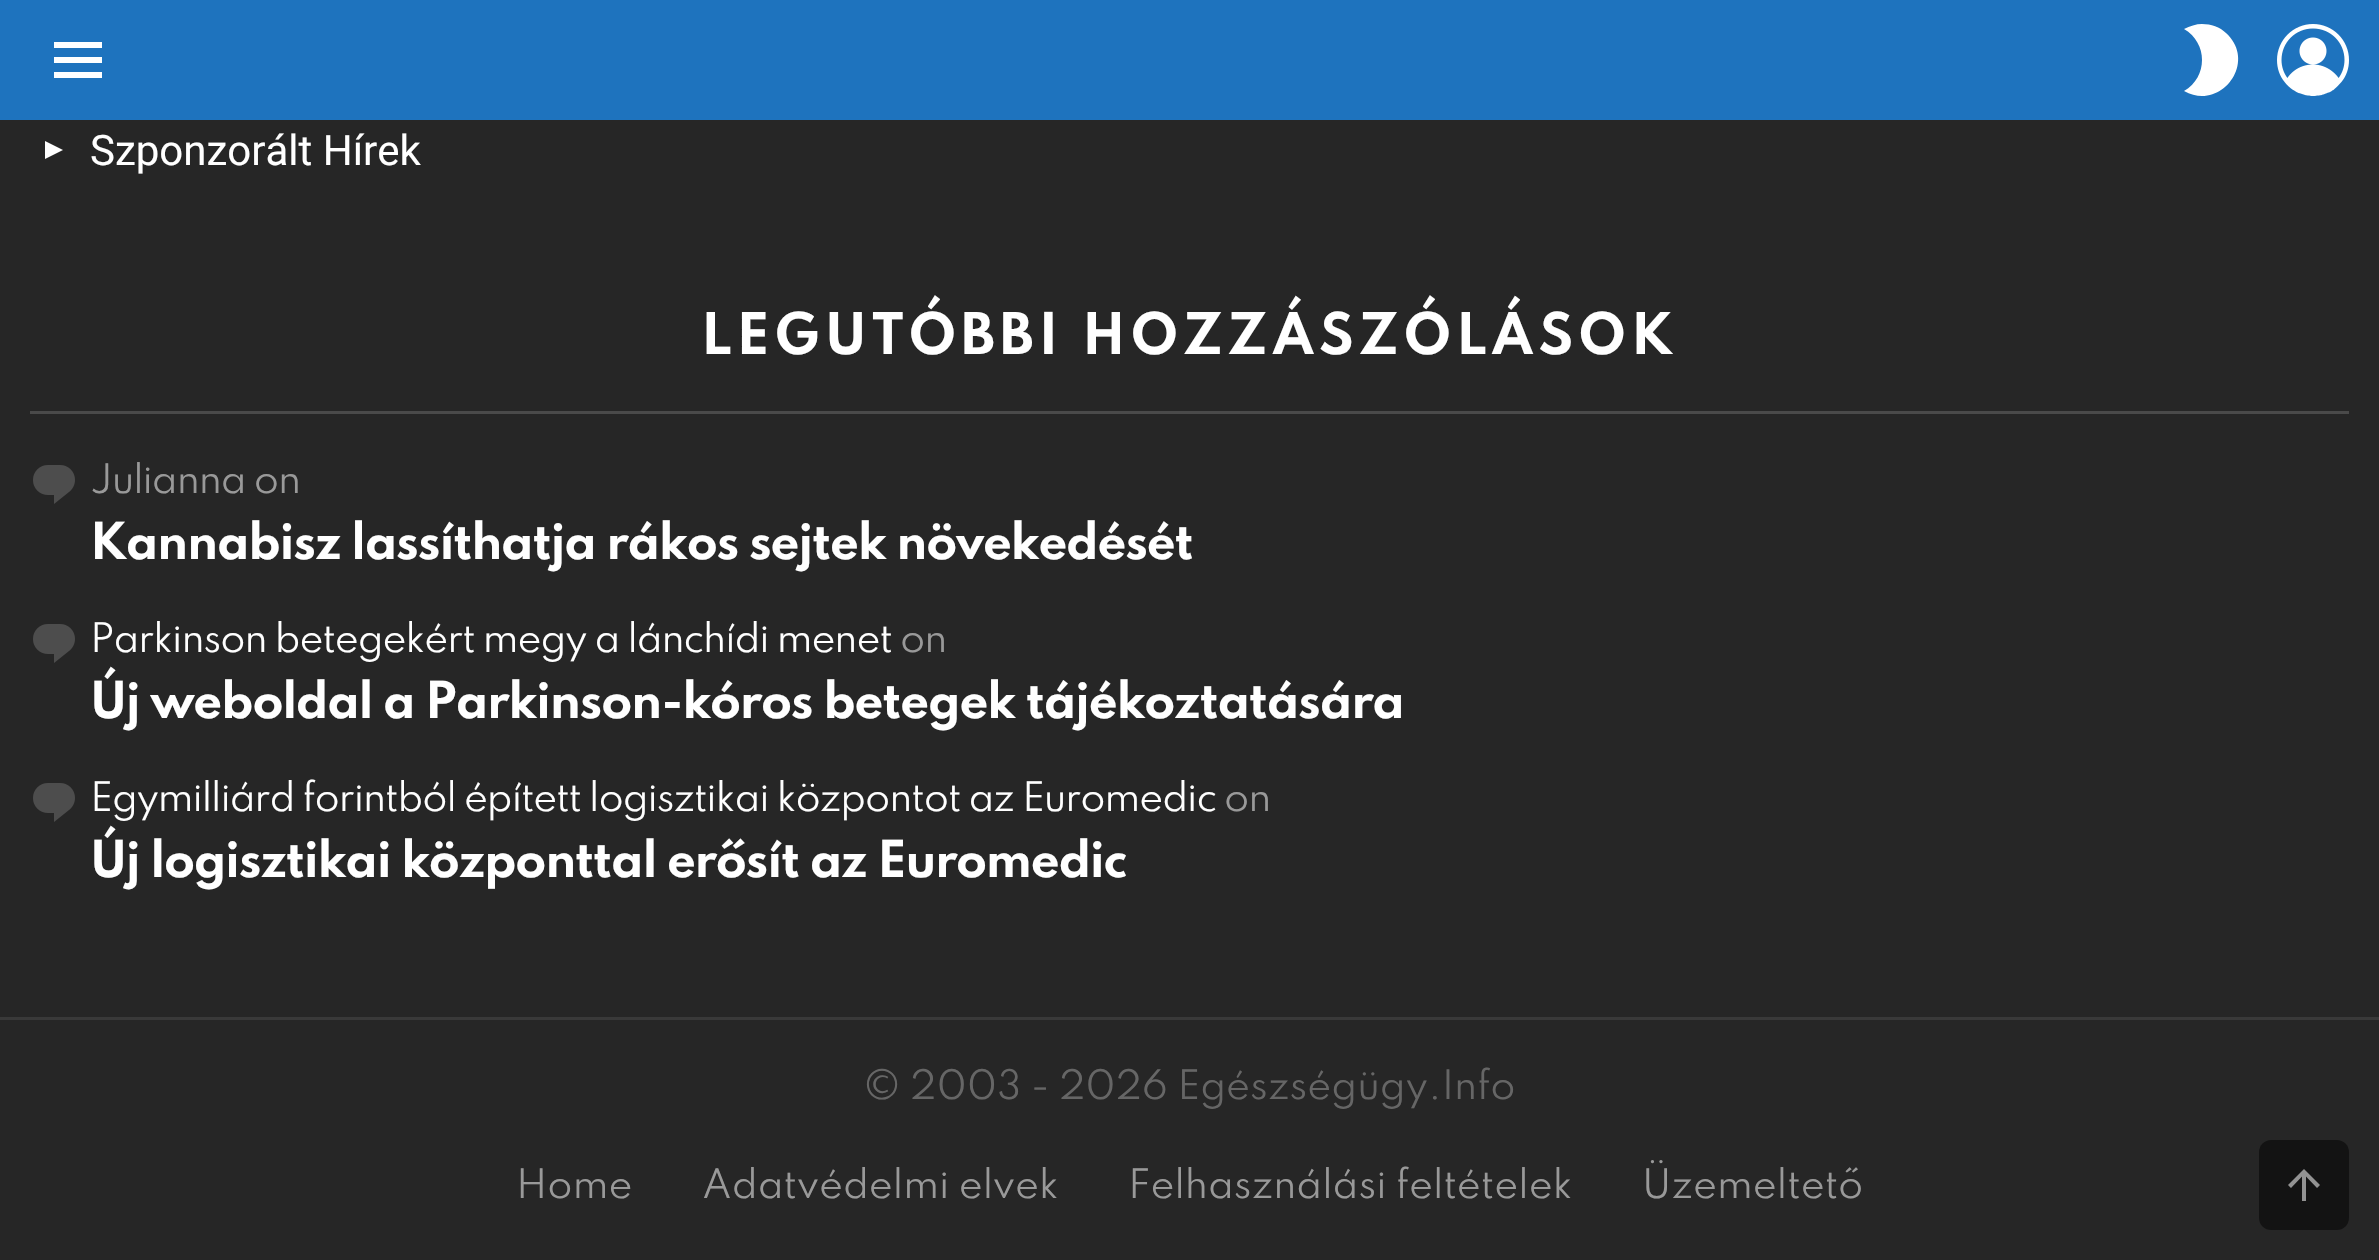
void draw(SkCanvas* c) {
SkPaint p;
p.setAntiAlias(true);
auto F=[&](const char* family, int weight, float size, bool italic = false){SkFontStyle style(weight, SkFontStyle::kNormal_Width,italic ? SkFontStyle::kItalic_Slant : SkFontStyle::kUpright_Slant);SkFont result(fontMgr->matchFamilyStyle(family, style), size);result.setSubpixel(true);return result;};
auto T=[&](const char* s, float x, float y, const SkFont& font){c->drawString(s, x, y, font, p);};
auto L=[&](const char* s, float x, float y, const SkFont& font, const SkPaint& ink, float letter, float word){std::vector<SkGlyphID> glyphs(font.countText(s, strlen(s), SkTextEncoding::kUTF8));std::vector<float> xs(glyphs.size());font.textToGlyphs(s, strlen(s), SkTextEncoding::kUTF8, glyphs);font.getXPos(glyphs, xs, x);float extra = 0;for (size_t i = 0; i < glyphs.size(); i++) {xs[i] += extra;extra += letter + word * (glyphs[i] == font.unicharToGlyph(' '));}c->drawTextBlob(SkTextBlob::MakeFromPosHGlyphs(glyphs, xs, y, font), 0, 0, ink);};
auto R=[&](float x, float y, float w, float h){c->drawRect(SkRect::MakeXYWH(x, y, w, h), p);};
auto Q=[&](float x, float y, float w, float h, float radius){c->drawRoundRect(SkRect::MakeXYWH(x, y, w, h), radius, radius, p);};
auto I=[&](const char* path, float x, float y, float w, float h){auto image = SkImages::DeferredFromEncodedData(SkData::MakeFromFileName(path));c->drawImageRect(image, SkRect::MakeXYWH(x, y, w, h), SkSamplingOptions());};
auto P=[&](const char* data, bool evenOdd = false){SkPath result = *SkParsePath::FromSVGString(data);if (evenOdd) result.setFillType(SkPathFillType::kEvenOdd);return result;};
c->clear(0xff262626);
p.setColor(0xff1e73be);
R(0,0,2379,120);
p.setColor(0xffffffff);
c->drawPath(P("M54 42h48v6h-48zm0 15h48v6h-48zm0 15h48v6h-48z"),p);
c->drawPath(P("M2202 24c-6 0-12 2-18 5c24 14 24 48 0 62c37 21 74-29 42-58c-6-6-15-9-24-9z"),p);
I("1.png",2277,24,72,72);
c->drawPath(P("M63 150l-18-9v18z"),p);
auto f1 = F("Roboto",400,42);
T("Szponzorált Hírek",90,165,f1);
auto f2 = F("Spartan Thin",700,51);
L("LEGUTÓBBI HOZZÁSZÓLÁSOK",701,354,f2,p,4.95,0);
p.setColor(0xff4a4a4a);
R(30,411,2319,3);
I("2.png",33,465,42,39);
auto f3 = F("Spartan Thin",400,36);
p.setColor(0xff999999);
L("Julianna on",90,493,f3,p,-1.08,0);
auto f4 = F("Spartan Thin",700,45);
p.setColor(0xffffffff);
L("Kannabisz lassíthatja rákos sejtek növekedését",90,559,f4,p,-1.35,0);
I("2.png",33,624,42,39);
L("Parkinson betegekért megy a lánchídi menet",90,652,f3,p,-1.08,0);
p.setColor(0xff999999);
L("on",900,652,f3,p,-1.08,0);
p.setColor(0xffffffff);
L("Új weboldal a Parkinson-kóros betegek tájékoztatására",90,718,f4,p,-1.35,0);
I("2.png",33,783,42,39);
L("Egymilliárd forintból épített logisztikai központot az Euromedic",90,811,f3,p,-1.08,0);
p.setColor(0xff999999);
L("on",1224,811,f3,p,-1.08,0);
p.setColor(0xffffffff);
L("Új logisztikai központtal erősít az Euromedic",90,877,f4,p,-1.35,0);
p.setColor(0xff393939);
R(0,1017,2379,3);
p.setColor(0xff666666);
T("© 2003 - 2026 Egészségügy.Info",863,1099,f3);
p.setColor(0xff999999);
T("Home",516,1198,f3);
T("Adatvédelmi elvek",702,1198,f3);
T("Felhasználási feltételek",1128,1198,f3);
T("Üzemeltető",1642,1198,f3);
p.setColor(0xff131313);
Q(2259,1140,90,90,12);
p.setColor(0xff939393);
c->drawPath(P("M2306 1201v-24.5l11 11.5l3-3l-16-16l-16 16l3 3l11-11.5v24.5z"),p);
}
